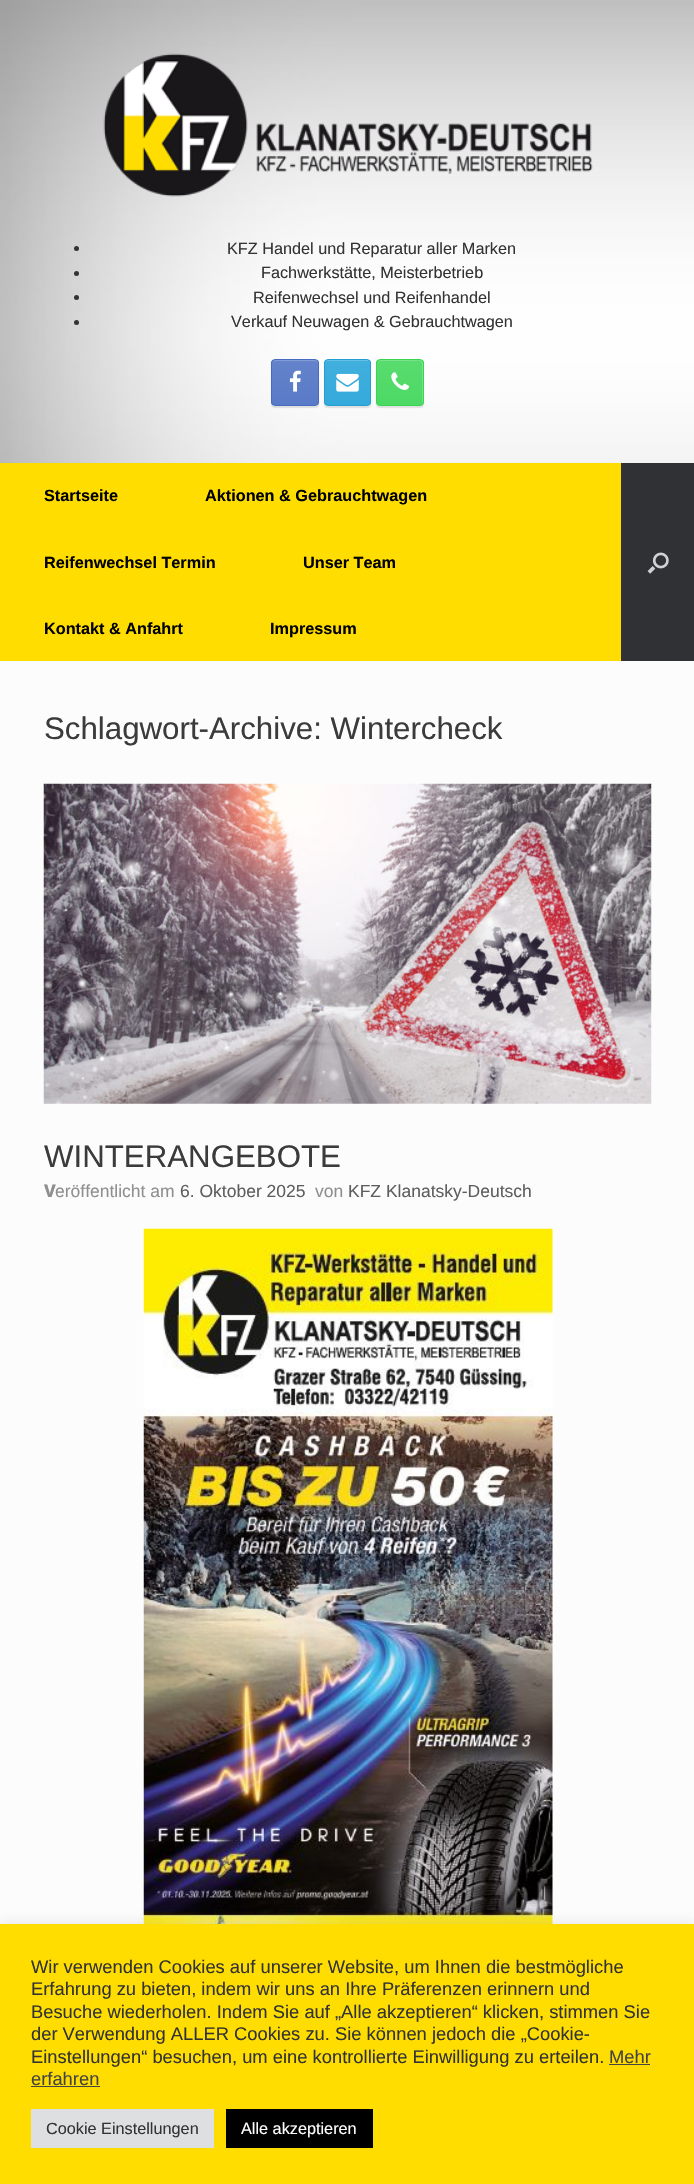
void draw(SkCanvas* c) {
SkPaint p;
p.setAntiAlias(true);
auto F=[&](const char* family, int weight, float size, bool italic = false){SkFontStyle style(weight, SkFontStyle::kNormal_Width,italic ? SkFontStyle::kItalic_Slant : SkFontStyle::kUpright_Slant);SkFont result(fontMgr->matchFamilyStyle(family, style), size);result.setSubpixel(true);return result;};
auto T=[&](const char* s, float x, float y, const SkFont& font){c->drawString(s, x, y, font, p);};
auto R=[&](float x, float y, float w, float h){c->drawRect(SkRect::MakeXYWH(x, y, w, h), p);};
auto I=[&](const char* path, float x, float y, float w, float h){auto image = SkImages::DeferredFromEncodedData(SkData::MakeFromFileName(path));c->drawImageRect(image, SkRect::MakeXYWH(x, y, w, h), SkSamplingOptions());};
auto P=[&](const char* data, bool evenOdd = false){SkPath result = *SkParsePath::FromSVGString(data);if (evenOdd) result.setFillType(SkPathFillType::kEvenOdd);return result;};
c->clear(0xffffffff);
I("1.png",0,0,694,463);
I("2.png",103,53,490,144);
p.setColor(0xff333333);
c->drawCircle(76.5,248.5,2.5,p);
auto f1 = F("Liberation Sans",400,16.25);
T("KFZ Handel und Reparatur aller Marken",227,254,f1);
c->drawCircle(76.5,273.5,2.5,p);
T("Fachwerkstätte, Meisterbetrieb",261,278,f1);
c->drawCircle(76.5,297.5,2.5,p);
T("Reifenwechsel und Reifenhandel",253,303,f1);
c->drawCircle(76.5,322.5,2.5,p);
T("Verkauf Neuwagen & Gebrauchtwagen",231,327,f1);
p.setColor(0x1a000000);
p.setMaskFilter(SkMaskFilter::MakeBlur(kNormal_SkBlurStyle, .5));
c->drawRoundRect(SkRect::MakeXYWH(271,360,48,48),4,4,p);
p.setMaskFilter(nullptr);
c->save();
c->clipPath(P("M275 359h40c2 0 4 2 4 4v39c0 2-2 4-4 4h-40c-2 0-4-2-4-4v-39c0-2 2-4 4-4z"),true);
{
const SkColor colors[] = {0xff597ac7,0xff6483cb};
const float stops[] = {0,1};
const SkPoint ends[] = {{273,405}, {273,360}};
p.setShader(SkGradientShader::MakeLinear(ends, colors, stops, 2, SkTileMode::kClamp));
p.setAlpha(255);
}
R(271,360,48,45);
c->restore();
p.setShader(nullptr);
p.setColor(0xff839cd5);
c->drawPath(P("M275 361h40c1 0 3 1 3 3v-2c0-1-1-2-2-2h-40c-2 0-3 1-3 2z"),p);
p.setStroke(true);
p.setStrokeWidth(1);
p.setColor(0xff466bc1);
c->drawRoundRect(SkRect::MakeXYWH(271.5,359.5,47,46),3.5,3.5,p);
I("3.png",289,370,12,22);
p.setStroke(false);
p.setColor(0x1a000000);
p.setMaskFilter(SkMaskFilter::MakeBlur(kNormal_SkBlurStyle, .5));
c->drawRoundRect(SkRect::MakeXYWH(324,360,47,48),4,4,p);
p.setMaskFilter(nullptr);
c->save();
c->clipPath(P("M328 359h39c2 0 4 2 4 4v39c0 2-2 4-4 4h-39c-2 0-4-2-4-4v-39c0-2 2-4 4-4z"),true);
{
const SkColor colors[] = {0xff34aadc,0xff41afde};
const float stops[] = {0,1};
const SkPoint ends[] = {{325,405}, {325,360}};
p.setShader(SkGradientShader::MakeLinear(ends, colors, stops, 2, SkTileMode::kClamp));
p.setAlpha(255);
}
R(324,360,47,45);
c->restore();
p.setShader(nullptr);
p.setColor(0xff67bfe5);
c->drawPath(P("M328 361h40c1 0 2 1 2 3c0-6-4-4-9-4h-27c-5 0-9-2-9 4c0-2 1-3 3-3z"),p);
p.setStroke(true);
p.setColor(0xff249ed2);
c->drawRoundRect(SkRect::MakeXYWH(324.5,359.5,46,46),3.5,3.5,p);
I("4.png",336,373,23,19);
p.setStroke(false);
p.setColor(0x1a000000);
p.setMaskFilter(SkMaskFilter::MakeBlur(kNormal_SkBlurStyle, .5));
c->drawRoundRect(SkRect::MakeXYWH(376,360,48,48),4,4,p);
p.setMaskFilter(nullptr);
c->save();
c->clipPath(P("M380 359h40c2 0 4 2 4 4v39c0 2-2 4-4 4h-40c-2 0-4-2-4-4v-39c0-2 2-4 4-4z"),true);
{
const SkColor colors[] = {0xff4cd964,0xff59dc6f};
const float stops[] = {0,1};
const SkPoint ends[] = {{378,405}, {378,360}};
p.setShader(SkGradientShader::MakeLinear(ends, colors, stops, 2, SkTileMode::kClamp));
p.setAlpha(255);
}
R(376,360,48,45);
c->restore();
p.setShader(nullptr);
p.setColor(0x33ffffff);
c->drawPath(P("M380 361h33c4 0 9-2 9 3v41c1-1 1-2 1-3v-40c0-1-1-2-3-2h-40c-1 0-2 1-2 2v2c0-2 1-3 2-3z"),p);
p.setStroke(true);
p.setColor(0xff37d552);
c->drawRoundRect(SkRect::MakeXYWH(376.5,359.5,47,46),3.5,3.5,p);
I("5.png",391,372,18,18);
p.setStroke(false);
p.setColor(0xffffdd00);
R(0,463,621,198);
auto f2 = F("Liberation Sans",700,16.25);
p.setColor(0xff000000);
T("Startseite",44,501,f2);
T("Aktionen & Gebrauchtwagen",205,501,f2);
T("Reifenwechsel Termin",44,568,f2);
T("Unser Team",303,568,f2);
T("Kontakt & Anfahrt",44,634,f2);
T("Impressum",270,634,f2);
p.setColor(0xff303134);
R(621,463,73,198);
I("6.png",647,552,22,22);
p.setColor(0xfffcfcfc);
R(0,661,694,1263);
auto f3 = F("Liberation Sans",400,31.25);
p.setColor(0xff3b3b3b);
T("Schlagwort-Archive: Wintercheck",44,739,f3);
I("7.png",43,783,609,321);
T("WINTERANGEBOTE",44,1167,f3);
auto f4 = F("Noto Sans",800,17.5);
p.setColor(0xff8f8f8f);
T("V",44,1197,f4);
auto f5 = F("Liberation Sans",400,17.5);
T("eröffentlicht am",55,1197,f5);
p.setColor(0xff5e5e5e);
T("6. Oktober 2025",180,1197,f5);
p.setColor(0xff8f8f8f);
T("von",315,1197,f5);
p.setColor(0xff5e5e5e);
T("KFZ Klanatsky-Deutsch",348,1197,f5);
I("8.png",143,1228,410,696);
p.setColor(0x4dacabab);
p.setMaskFilter(SkMaskFilter::MakeBlur(kNormal_SkBlurStyle, 6));
c->drawRect(SkRect::MakeXYWH(0,1923,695,261),p);
p.setMaskFilter(nullptr);
p.setColor(0xffffdd00);
R(0,1924,694,260);
auto f6 = F("Liberation Sans",400,18.35);
p.setColor(0xff333333);
T("Wir verwenden Cookies auf unserer Website, um Ihnen die bestmögliche",31,1973,f6);
T("Erfahrung zu bieten, indem wir uns an Ihre Präferenzen erinnern und",31,1995,f6);
T("Besuche wiederholen. Indem Sie auf „Alle akzeptieren“ klicken, stimmen Sie",31,2018,f6);
T("der Verwendung ALLER Cookies zu. Sie können jedoch die „Cookie-",31,2040,f6);
T("Einstellungen“ besuchen, um eine kontrollierte Einwilligung zu erteilen.",31,2063,f6);
p.setColor(0xff444444);
T("Mehr",609,2063,f6);
R(609,2064,41,1);
T("erfahren",31,2085,f6);
R(31,2086,69,1);
p.setColor(0xffdedfe0);
R(31,2109,183,39);
p.setColor(0xff333333);
T("Cookie Einstellungen",46,2134,f1);
p.setColor(0xff000000);
R(226,2109,147,39);
p.setColor(0xffffffff);
T("Alle akzeptieren",241,2134,f1);
}
